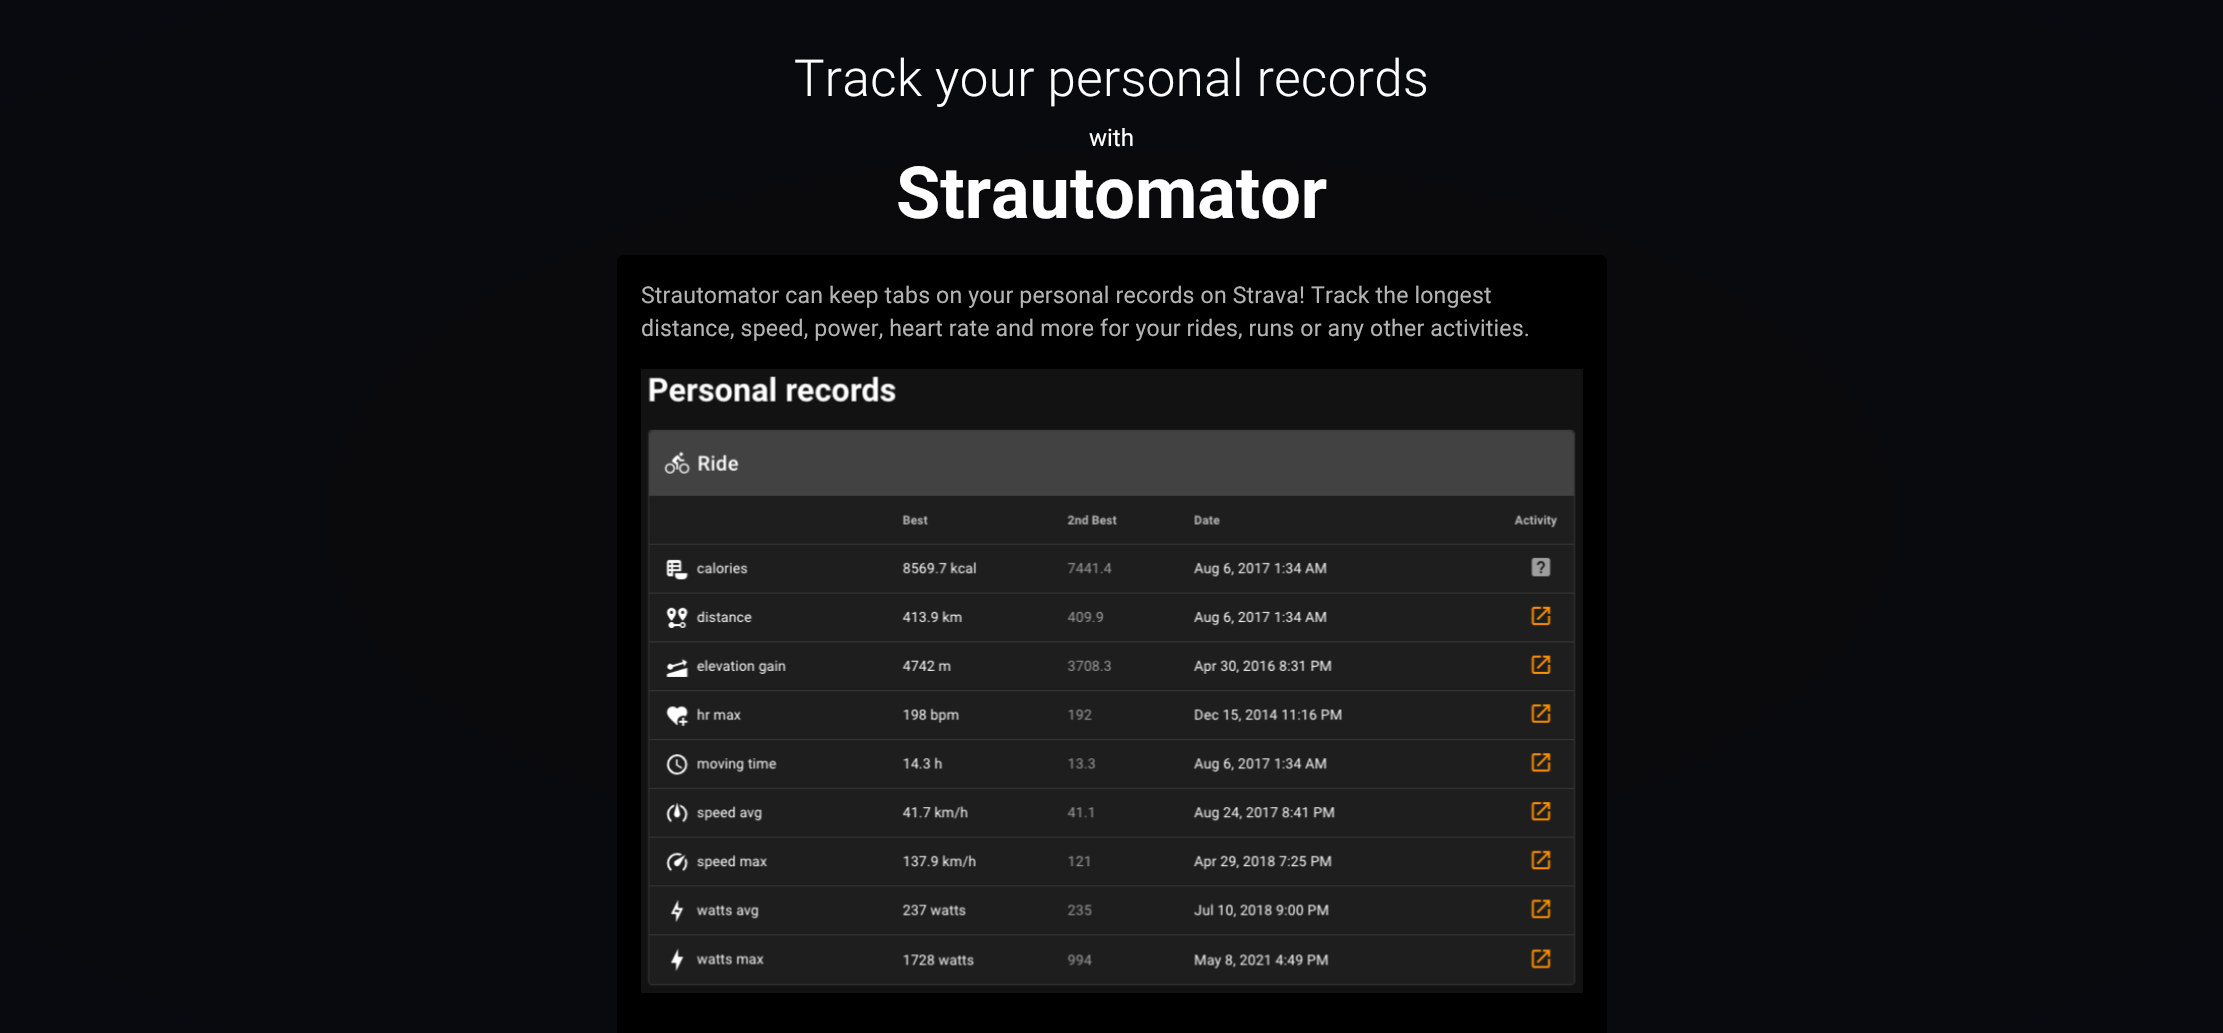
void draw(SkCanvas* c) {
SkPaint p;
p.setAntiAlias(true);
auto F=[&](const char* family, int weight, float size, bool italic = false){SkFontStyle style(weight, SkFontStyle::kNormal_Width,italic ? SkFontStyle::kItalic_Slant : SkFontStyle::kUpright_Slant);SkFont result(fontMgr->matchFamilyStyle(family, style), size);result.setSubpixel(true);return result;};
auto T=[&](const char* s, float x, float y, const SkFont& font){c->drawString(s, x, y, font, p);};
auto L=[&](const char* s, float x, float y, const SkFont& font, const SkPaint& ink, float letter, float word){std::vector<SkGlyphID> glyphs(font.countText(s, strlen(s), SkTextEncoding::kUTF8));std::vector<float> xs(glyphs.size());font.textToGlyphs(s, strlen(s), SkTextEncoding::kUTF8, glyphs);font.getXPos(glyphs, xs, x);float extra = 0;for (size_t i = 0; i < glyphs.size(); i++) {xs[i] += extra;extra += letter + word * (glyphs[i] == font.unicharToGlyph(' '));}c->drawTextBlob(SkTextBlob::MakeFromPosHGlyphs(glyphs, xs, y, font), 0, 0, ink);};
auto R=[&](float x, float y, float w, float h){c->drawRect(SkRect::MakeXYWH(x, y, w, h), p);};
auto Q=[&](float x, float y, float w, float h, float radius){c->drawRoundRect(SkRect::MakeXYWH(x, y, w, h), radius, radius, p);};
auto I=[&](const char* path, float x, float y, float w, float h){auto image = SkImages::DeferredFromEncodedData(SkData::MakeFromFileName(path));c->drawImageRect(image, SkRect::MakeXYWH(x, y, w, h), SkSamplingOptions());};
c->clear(0xffffffff);
{
const SkColor colors[] = {0xff0a0a0a,0xff090a0f};
const float stops[] = {0,1};
SkMatrix m = SkMatrix::Translate(1112,517).preScale(1572,731);
p.setShader(SkGradientShader::MakeRadial({0, 0}, 1, colors, stops, 2, SkTileMode::kClamp, 0, &m));
p.setAlpha(255);
}
R(0,0,2223,1033);
auto f1 = F("Roboto",300,51);
p.setShader(nullptr);
p.setColor(0xffffffff);
L("Track your personal records",794,96,f1,p,.4,0);
auto f2 = F("Roboto",400,24);
T("with",1089,146,f2);
auto f3 = F("Roboto",700,72);
T("Strautomator",896,218,f3);
p.setColor(0xff000000);
Q(617,255,990,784,6);
auto f4 = F("Roboto",400,23.1);
p.setColor(0xffb3b3b3);
L("Strautomator can keep tabs on your personal records on Strava! Track the longest",641,303,f4,p,.15,0);
L("distance, speed, power, heart rate and more for your rides, runs or any other activities.",641,336,f4,p,.15,0);
I("1.png",641,369,942,624);
}
